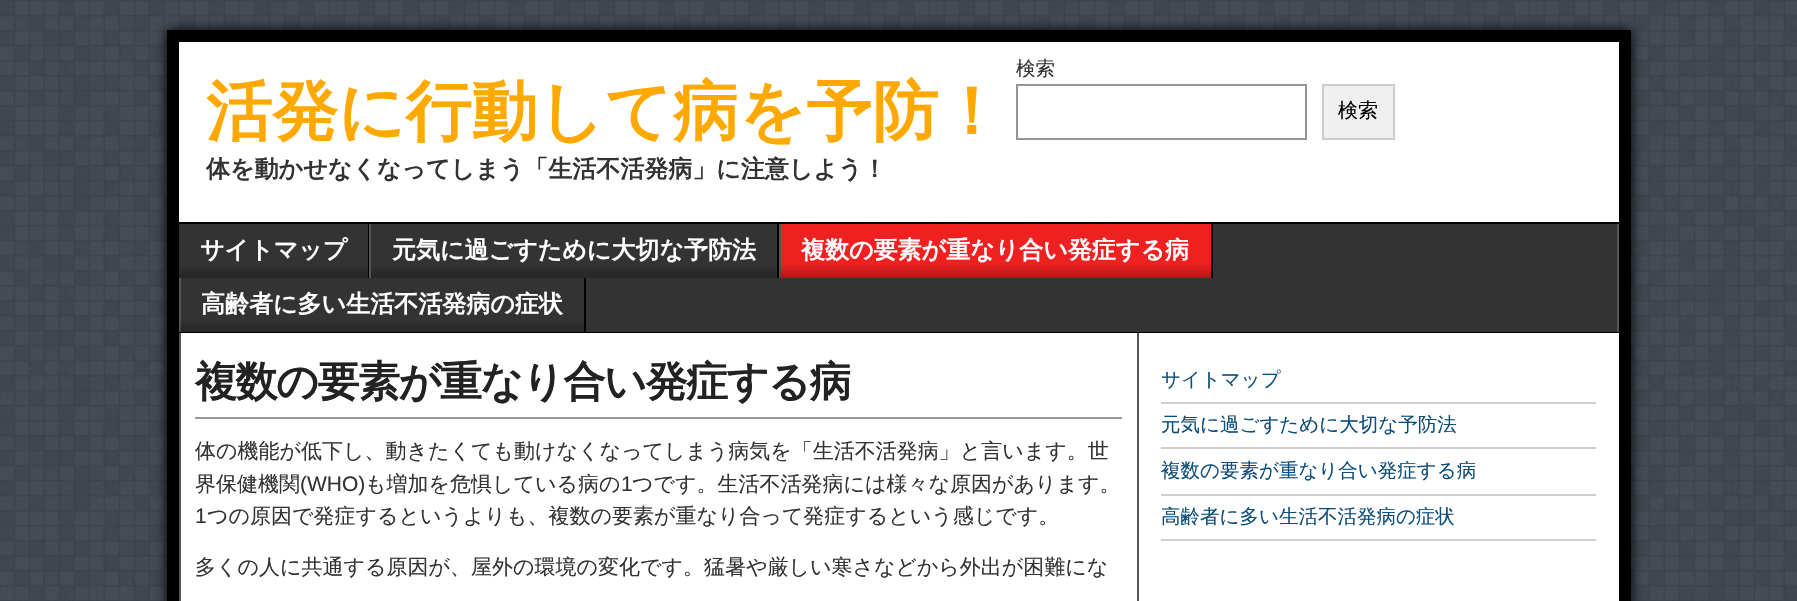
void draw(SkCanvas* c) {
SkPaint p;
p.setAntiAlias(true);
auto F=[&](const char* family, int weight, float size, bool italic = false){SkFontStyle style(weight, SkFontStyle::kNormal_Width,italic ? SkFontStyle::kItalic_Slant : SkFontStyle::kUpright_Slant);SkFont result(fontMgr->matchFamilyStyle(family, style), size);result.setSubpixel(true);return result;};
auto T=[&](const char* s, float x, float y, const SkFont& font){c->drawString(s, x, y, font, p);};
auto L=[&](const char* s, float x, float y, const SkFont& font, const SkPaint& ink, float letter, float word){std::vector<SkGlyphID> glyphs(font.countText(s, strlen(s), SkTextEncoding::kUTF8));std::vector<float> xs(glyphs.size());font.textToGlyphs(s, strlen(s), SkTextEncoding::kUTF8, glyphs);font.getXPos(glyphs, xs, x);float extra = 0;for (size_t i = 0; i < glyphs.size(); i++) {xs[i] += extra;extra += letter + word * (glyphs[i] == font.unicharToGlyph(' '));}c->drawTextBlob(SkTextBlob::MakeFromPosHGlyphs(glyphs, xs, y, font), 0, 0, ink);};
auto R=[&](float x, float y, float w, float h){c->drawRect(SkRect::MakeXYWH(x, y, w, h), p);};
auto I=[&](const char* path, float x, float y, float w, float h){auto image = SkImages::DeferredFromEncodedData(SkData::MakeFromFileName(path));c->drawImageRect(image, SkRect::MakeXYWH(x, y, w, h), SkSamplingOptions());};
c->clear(0xffffffff);
I("1.png",0,0,1797,601);
p.setColor(0xff000000);
p.setMaskFilter(SkMaskFilter::MakeBlur(kNormal_SkBlurStyle, 6));
c->drawRect(SkRect::MakeXYWH(167,30,1464,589),p);
p.setMaskFilter(nullptr);
p.setColor(0xffffffff);
R(179,42,1440,180);
p.setStroke(true);
p.setStrokeWidth(12);
p.setColor(0xff000000);
c->drawRect(SkRect::MakeXYWH(173,36,1452,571),p);
auto f1 = F("WenQuanYi Zen Hei",700,66);
p.setStroke(false);
p.setColor(0xffffa900);
T("活発に行動して病を予防！",206,134,f1);
auto f2 = F("WenQuanYi Zen Hei",700,24);
p.setColor(0xff333333);
T("体を動かせなくなってしまう「生活不活発病」に注意しよう！",206,177,f2);
auto f3 = F("WenQuanYi Zen Hei",500,19.5);
T("検索",1016,75,f3);
p.setStroke(true);
p.setStrokeWidth(2);
p.setColor(0xff949494);
c->drawRect(SkRect::MakeXYWH(1017,85,289,54),p);
p.setStroke(false);
p.setColor(0xffefefef);
c->drawRect(SkRect::MakeXYWH(1323,85,71,54),p);
p.setStroke(true);
p.setColor(0xffcccccc);
c->drawRect(SkRect::MakeXYWH(1323,85,71,54),p);
auto f4 = F("WenQuanYi Zen Hei",500,20);
p.setStroke(false);
p.setColor(0xff000000);
T("検索",1338,117,f4);
p.setColor(0xff333333);
R(181,224,1436,108);
p.setColor(0xff555555);
R(1617,224,2,108);
p.setColor(0xff000000);
R(368,224,1,54);
{
const SkColor colors[] = {0xff333333,0xff252525};
const float stops[] = {.75,1};
const SkPoint ends[] = {{273,224}, {273,278}};
p.setShader(SkGradientShader::MakeLinear(ends, colors, stops, 2, SkTileMode::kClamp));
p.setAlpha(255);
}
R(179,224,189,54);
p.setShader(nullptr);
p.setColor(0xffffffff);
T("サイトマップ",200,258,f2);
p.setColor(0xff000000);
R(777,224,2,54);
p.setColor(0xff555555);
R(369,224,2,54);
{
const SkColor colors[] = {0xff333333,0xff252525};
const float stops[] = {.75,1};
const SkPoint ends[] = {{574,223}, {574,278}};
p.setShader(SkGradientShader::MakeLinear(ends, colors, stops, 2, SkTileMode::kClamp));
p.setAlpha(255);
}
R(371,267,406,11);
p.setShader(nullptr);
p.setColor(0xffffffff);
T("元気に過ごすために大切な予防法",392,258,f2);
p.setColor(0xffee2020);
R(781,224,430,54);
p.setColor(0xff000000);
R(1211,224,2,54);
p.setColor(0xff555555);
R(779,224,2,54);
{
const SkColor colors[] = {0x00000000,0x47000000};
const float stops[] = {.75,1};
const SkPoint ends[] = {{995,223}, {995,278}};
p.setShader(SkGradientShader::MakeLinear(ends, colors, stops, 2, SkTileMode::kClamp));
p.setAlpha(255);
}
R(780,265,431,13);
p.setShader(nullptr);
p.setColor(0xffffffff);
T("複数の要素が重なり合い発症する病",801,258,f2);
p.setColor(0xff000000);
R(584,278,2,54);
p.setColor(0xff555555);
R(179,278,2,54);
{
const SkColor colors[] = {0x00000000,0x47000000};
const float stops[] = {.75,1};
const SkPoint ends[] = {{382,277}, {382,332}};
p.setShader(SkGradientShader::MakeLinear(ends, colors, stops, 2, SkTileMode::kClamp));
p.setAlpha(255);
}
R(180,320,404,12);
p.setShader(nullptr);
p.setColor(0xffffffff);
T("高齢者に多い生活不活発病の症状",201,312,f2);
R(181,333,956,268);
p.setColor(0xff555555);
R(1137,333,2,268);
R(179,333,2,268);
auto f5 = F("WenQuanYi Zen Hei",700,42);
p.setColor(0xff222222);
L("複数の要素が重なり合い発症する病",195,396,f5,p,-1.5,0);
p.setColor(0xff999999);
R(195,417,927,2);
auto f6 = F("WenQuanYi Zen Hei",500,21);
p.setColor(0xff333333);
T("体の機能が低下し、動きたくても動けなくなってしまう病気を「生活不活発病」と言います。世",195,458,f6);
T("界保健機関",195,491,f6);
auto f7 = F("Liberation Sans",400,21);
T("(WHO)",300,491,f7);
T("も増加を危惧している病の",365,491,f6);
T("1",621,491,f7);
T("つです。生活不活発病には様々な原因があります。",632,491,f6);
T("1",195,523,f7);
T("つの原因で発症するというよりも、複数の要素が重なり合って発症するという感じです。",207,523,f6);
T("多くの人に共通する原因が、屋外の環境の変化です。猛暑や厳しい寒さなどから外出が困難にな",195,574,f6);
p.setColor(0xffffffff);
R(1139,333,480,268);
p.setColor(0xffcfcfcf);
R(1161,402,435,2);
p.setColor(0xff0e4d7a);
T("サイトマップ",1161,386,f3);
p.setColor(0xffcfcfcf);
R(1161,447,435,2);
p.setColor(0xff0e4d7a);
T("元気に過ごすために大切な予防法",1161,431,f3);
p.setColor(0xffcfcfcf);
R(1161,494,435,2);
p.setColor(0xff0e4d7a);
T("複数の要素が重なり合い発症する病",1161,477,f3);
p.setColor(0xffcfcfcf);
R(1161,539,435,2);
p.setColor(0xff0e4d7a);
T("高齢者に多い生活不活発病の症状",1161,523,f3);
}
